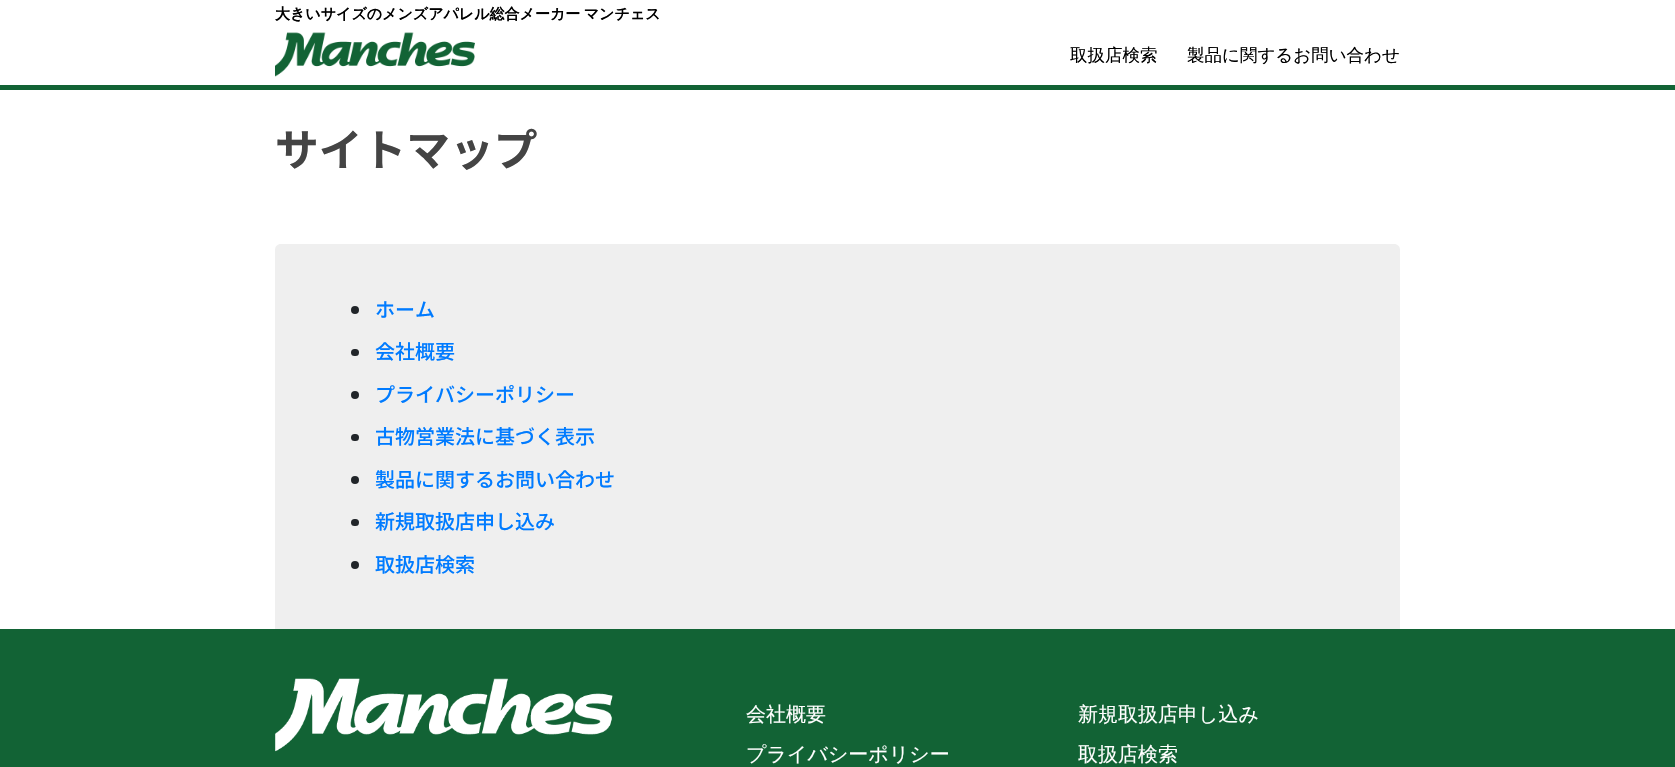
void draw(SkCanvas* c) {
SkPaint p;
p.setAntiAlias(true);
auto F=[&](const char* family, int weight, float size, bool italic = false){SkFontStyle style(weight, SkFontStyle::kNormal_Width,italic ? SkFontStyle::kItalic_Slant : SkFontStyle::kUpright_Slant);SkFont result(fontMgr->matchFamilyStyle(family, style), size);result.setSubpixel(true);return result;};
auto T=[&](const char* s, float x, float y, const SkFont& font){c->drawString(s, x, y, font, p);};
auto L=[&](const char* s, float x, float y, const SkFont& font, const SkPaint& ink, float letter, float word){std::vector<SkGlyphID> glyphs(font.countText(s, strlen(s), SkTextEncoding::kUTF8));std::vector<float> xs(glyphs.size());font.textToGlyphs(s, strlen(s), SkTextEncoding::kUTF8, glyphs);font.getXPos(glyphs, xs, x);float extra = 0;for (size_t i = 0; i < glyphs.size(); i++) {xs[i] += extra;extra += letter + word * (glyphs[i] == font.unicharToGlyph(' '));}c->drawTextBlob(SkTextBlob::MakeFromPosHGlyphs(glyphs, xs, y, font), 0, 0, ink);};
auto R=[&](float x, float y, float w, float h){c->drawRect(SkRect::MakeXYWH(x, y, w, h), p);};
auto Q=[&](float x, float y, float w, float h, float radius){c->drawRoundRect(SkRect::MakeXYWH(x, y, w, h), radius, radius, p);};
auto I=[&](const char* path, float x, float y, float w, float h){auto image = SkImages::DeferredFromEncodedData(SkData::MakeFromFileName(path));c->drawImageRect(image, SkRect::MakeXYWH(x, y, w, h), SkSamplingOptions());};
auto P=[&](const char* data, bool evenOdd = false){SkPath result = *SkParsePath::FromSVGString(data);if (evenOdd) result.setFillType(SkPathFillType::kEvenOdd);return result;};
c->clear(0xffffffff);
p.setColor(0xff126335);
R(0,85,1675,5);
auto f1 = F("WenQuanYi Zen Hei",700,15);
p.setColor(0xff000000);
L("大きいサイズのメンズアパレル総合メーカー マンチェス",275,19,f1,p,0,-1);
I("1.png",275,32,200,45);
auto f2 = F("WenQuanYi Zen Hei",500,17.5);
T("取扱店検索",1070,61,f2);
T("製品に関するお問い合わせ",1187,61,f2);
auto f3 = F("Noto Sans JP",700,43.75);
p.setColor(0xff444444);
T("サイトマップ",275,166,f3);
p.setColor(0xffefefef);
c->drawPath(P("M281 244h1113c3.5 0 6 2.5 6 6v379h-1125v-379c0-3.5 2.5-6 6-6z"),p);
p.setColor(0xff212529);
c->drawCircle(355,310,4,p);
auto f4 = F("Noto Sans JP",500,20);
p.setColor(0xff007bff);
T("ホーム",375,317,f4);
p.setColor(0xff212529);
Q(351,349,8,7,3.5);
p.setColor(0xff007bff);
T("会社概要",375,359,f4);
p.setColor(0xff212529);
c->drawCircle(355,395,4,p);
p.setColor(0xff007bff);
T("プライバシーポリシー",375,402,f4);
p.setColor(0xff212529);
Q(351,434,8,7,3.5);
p.setColor(0xff007bff);
T("古物営業法に基づく表示",375,444,f4);
p.setColor(0xff212529);
c->drawCircle(355,480,4,p);
p.setColor(0xff007bff);
T("製品に関するお問い合わせ",375,487,f4);
p.setColor(0xff212529);
Q(351,519,8,7,3.5);
p.setColor(0xff007bff);
T("新規取扱店申し込み",375,529,f4);
p.setColor(0xff212529);
c->drawCircle(355,565,4,p);
p.setColor(0xff007bff);
T("取扱店検索",375,572,f4);
p.setColor(0xff126335);
R(0,629,1675,138);
I("2.png",275,678,338,74);
auto f5 = F("WenQuanYi Zen Hei",500,20);
p.setColor(0xffffffff);
T("会社概要",746,721,f5);
T("プライバシーポリシー",746,761,f5);
T("新規取扱店申し込み",1078,721,f5);
T("取扱店検索",1078,761,f5);
}
